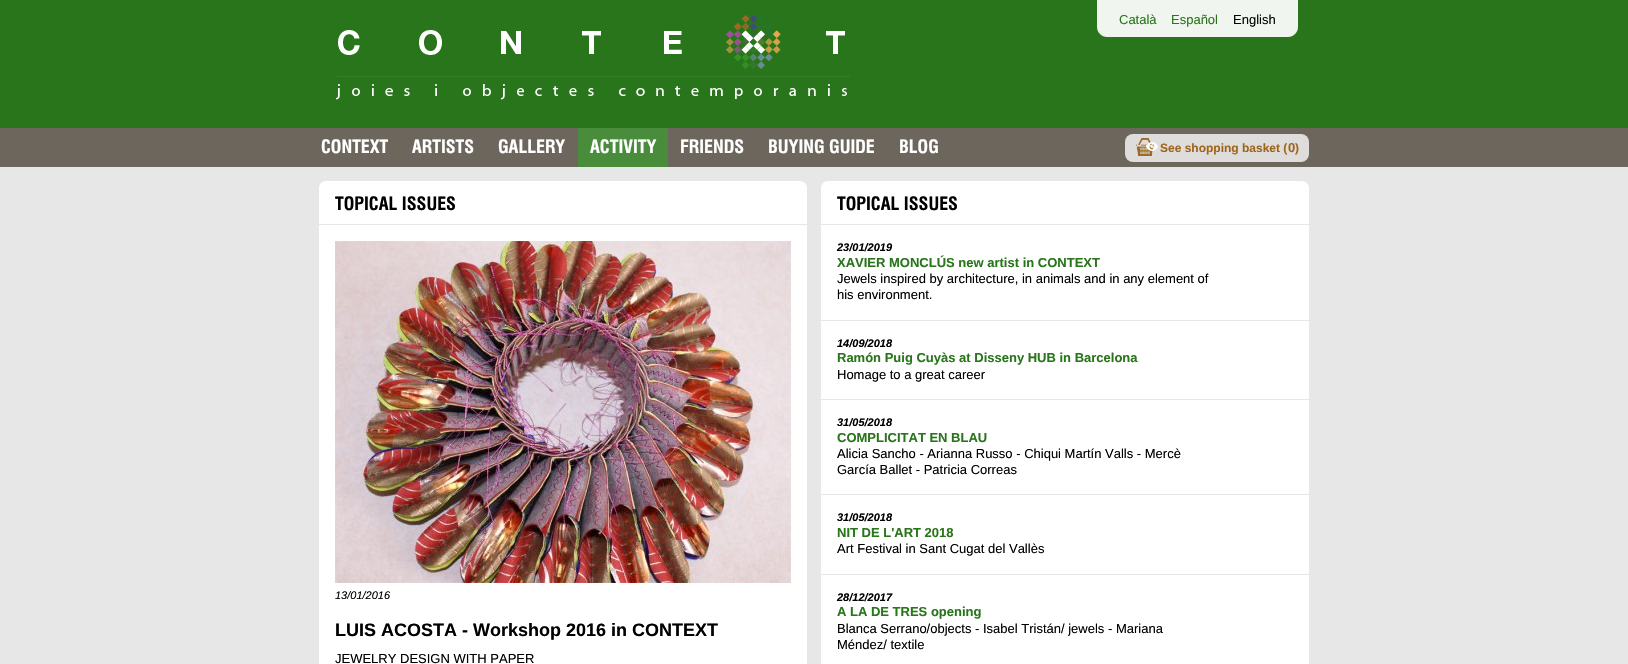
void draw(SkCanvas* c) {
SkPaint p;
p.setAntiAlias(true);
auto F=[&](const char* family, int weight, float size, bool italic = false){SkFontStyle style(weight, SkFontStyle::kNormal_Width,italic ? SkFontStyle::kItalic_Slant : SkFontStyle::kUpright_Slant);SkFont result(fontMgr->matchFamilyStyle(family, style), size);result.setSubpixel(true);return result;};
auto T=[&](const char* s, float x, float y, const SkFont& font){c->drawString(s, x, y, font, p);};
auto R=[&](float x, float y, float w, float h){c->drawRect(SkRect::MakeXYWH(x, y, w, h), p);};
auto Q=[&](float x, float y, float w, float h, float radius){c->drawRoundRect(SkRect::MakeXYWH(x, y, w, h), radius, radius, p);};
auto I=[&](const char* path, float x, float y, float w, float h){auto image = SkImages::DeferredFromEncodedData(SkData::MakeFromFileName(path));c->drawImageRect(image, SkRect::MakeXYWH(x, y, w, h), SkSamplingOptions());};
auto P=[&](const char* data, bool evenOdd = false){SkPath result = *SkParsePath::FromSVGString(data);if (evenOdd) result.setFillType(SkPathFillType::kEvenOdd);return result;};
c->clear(0xffe7e7e7);
p.setColor(0xff29751b);
R(0,0,1628,128);
I("1.png",336,15,514,85);
p.setColor(0xfff0f5ef);
c->drawPath(P("M1097 0h201v27c0 5.5-4.5 10-10 10h-181c-5.5 0-10-4.5-10-10z"),p);
auto f1 = F("Liberation Sans",400,13);
p.setColor(0xff29751b);
T("Català",1119,24,f1);
T("Español",1171,24,f1);
p.setColor(0xff030802);
T("English",1233,24,f1);
p.setColor(0xff6d665c);
R(0,128,1628,39);
auto f2 = F("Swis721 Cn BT",700,18);
p.setColor(0xffffffff);
T("CONTEXT",321,153,f2);
T("ARTISTS",412,153,f2);
T("GALLERY",498,153,f2);
p.setColor(0xff498c3c);
R(578,128,90,39);
p.setColor(0xffffffff);
T("ACTIVITY",590,153,f2);
T("FRIENDS",680,153,f2);
T("BUYING GUIDE",768,153,f2);
T("BLOG",899,153,f2);
p.setColor(0xffdfdddb);
Q(1125,134,184,28,8);
I("2.png",1136,138,22,18);
auto f3 = F("Liberation Sans",700,12);
p.setColor(0xff9f651b);
T("See shopping basket (",1160,152,f3);
auto f4 = F("Liberation Sans",700,13);
T("0",1288,152,f4);
T(")",1295,152,f3);
p.setColor(0xffffffff);
c->drawPath(P("M326 181h474c4 0 7 3 7 7v36h-488v-36c0-4 3-7 7-7z"),p);
p.setColor(0xff000000);
T("TOPICAL ISSUES",335,210,f2);
p.setColor(0xffffffff);
R(319,225,488,439);
I("3.png",335,241,456,342);
auto f5 = F("Liberation Sans",400,11,true);
p.setColor(0xff000000);
T("13/01/2016",335,599,f5);
auto f6 = F("Liberation Sans",700,18);
T("LUIS ACOSTA - Workshop 2016 in CONTEXT",335,636,f6);
T("JEWELRY DESIGN WITH PAPER",335,663,f1);
p.setColor(0xffffffff);
c->drawPath(P("M828 181h474c4 0 7 3 7 7v36h-488v-36c0-4 3-7 7-7z"),p);
p.setColor(0xff000000);
T("TOPICAL ISSUES",837,210,f2);
p.setColor(0xffffffff);
R(821,225,488,95);
auto f7 = F("Liberation Sans",700,11,true);
p.setColor(0xff000000);
T("23/01/2019",837,251,f7);
p.setColor(0xff29751b);
T("XAVIER MONCLÚS new artist in CONTEXT",837,267,f4);
p.setColor(0xff000000);
T("Jewels inspired by architecture, in animals and in any element of",837,283,f1);
T("his environment.",837,299,f1);
p.setColor(0xffffffff);
R(821,321,488,78);
p.setColor(0xff000000);
T("14/09/2018",837,347,f7);
p.setColor(0xff29751b);
T("Ramón Puig Cuyàs at Disseny HUB in Barcelona",837,362,f4);
p.setColor(0xff000000);
T("Homage to a great career",837,379,f1);
p.setColor(0xffffffff);
R(821,400,488,94);
p.setColor(0xff000000);
T("31/05/2018",837,426,f7);
p.setColor(0xff29751b);
T("COMPLICITAT EN BLAU",837,442,f4);
p.setColor(0xff000000);
T("Alicia Sancho - Arianna Russo - Chiqui Martín Valls - Mercè",837,458,f1);
T("García Ballet - Patricia Correas",837,474,f1);
p.setColor(0xffffffff);
R(821,495,488,79);
p.setColor(0xff000000);
T("31/05/2018",837,521,f7);
p.setColor(0xff29751b);
T("NIT DE L'ART 2018",837,537,f4);
p.setColor(0xff000000);
T("Art Festival in Sant Cugat del Vallès",837,553,f1);
p.setColor(0xffffffff);
R(821,575,488,89);
p.setColor(0xff000000);
T("28/12/2017",837,601,f7);
p.setColor(0xff29751b);
T("A LA DE TRES opening",837,616,f4);
p.setColor(0xff000000);
T("Blanca Serrano/objects - Isabel Tristán/ jewels - Mariana",837,633,f1);
T("Méndez/ textile",837,649,f1);
}
